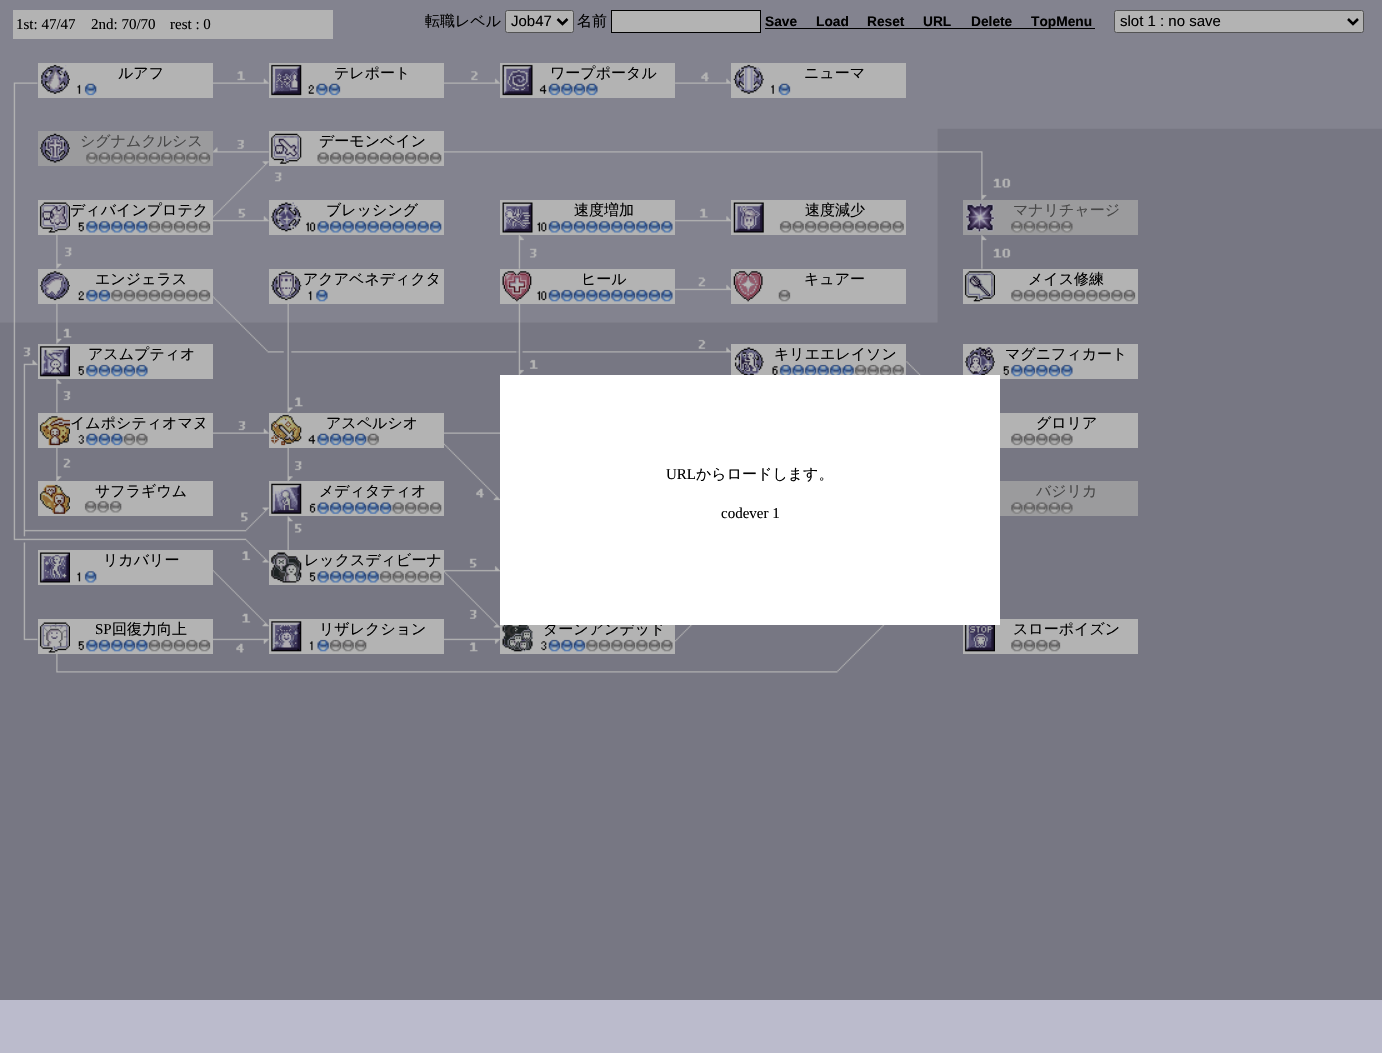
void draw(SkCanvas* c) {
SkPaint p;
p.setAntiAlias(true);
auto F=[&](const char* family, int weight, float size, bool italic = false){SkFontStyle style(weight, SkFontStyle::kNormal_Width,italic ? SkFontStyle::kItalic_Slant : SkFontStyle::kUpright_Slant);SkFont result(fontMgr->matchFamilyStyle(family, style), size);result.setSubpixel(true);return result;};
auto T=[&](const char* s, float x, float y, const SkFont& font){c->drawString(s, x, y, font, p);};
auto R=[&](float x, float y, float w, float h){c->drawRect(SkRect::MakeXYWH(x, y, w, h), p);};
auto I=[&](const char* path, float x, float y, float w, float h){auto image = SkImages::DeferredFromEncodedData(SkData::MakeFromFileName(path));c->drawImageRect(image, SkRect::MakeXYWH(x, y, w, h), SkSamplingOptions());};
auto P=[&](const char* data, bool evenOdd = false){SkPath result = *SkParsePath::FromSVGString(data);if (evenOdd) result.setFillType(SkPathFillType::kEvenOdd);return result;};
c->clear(0xffbbbbcc);
p.setColor(0xff83838f);
R(0,0,1382,353);
I("1.png",0,71,1382,929);
p.setColor(0xffb3b3b3);
R(13,10,320,29);
auto f1 = F("Liberation Serif",400,15);
p.setColor(0xff000000);
T("1st: 47/47",16,29,f1);
T("2nd: 70/70",91,29,f1);
T("rest : 0",170,29,f1);
auto f2 = F("WenQuanYi Zen Hei",500,15);
T("転職レベル",425,26,f2);
p.setColor(0xffb3b3b3);
c->drawRoundRect(SkRect::MakeXYWH(505.5,10.5,68,22),2,2,p);
p.setStroke(true);
p.setStrokeWidth(1);
p.setColor(0xff535353);
c->drawRoundRect(SkRect::MakeXYWH(505.5,10.5,68,22),2,2,p);
p.setStrokeWidth(2.5);
p.setColor(0xff000000);
c->drawPath(P("M557.5 19l5 5l5-5"),p);
auto f3 = F("Liberation Sans",400,15);
p.setStroke(false);
T("Job47",511,26,f3);
T("名前",577,26,f2);
p.setColor(0xffb3b3b3);
c->drawRect(SkRect::MakeXYWH(611.5,10.5,149,22),p);
p.setStroke(true);
p.setStrokeWidth(1);
p.setColor(0xff000000);
c->drawRect(SkRect::MakeXYWH(611.5,10.5,149,22),p);
auto f4 = F("Liberation Sans",700,13.75);
p.setStroke(false);
T("Save",765,26,f4);
T("Load",816,26,f4);
T("Reset",867,26,f4);
T("URL",923,26,f4);
T("Delete",971,26,f4);
R(765,28,330,1);
T("TopMenu",1031,26,f4);
p.setColor(0xffb3b3b3);
c->drawRoundRect(SkRect::MakeXYWH(1114.5,10.5,249,22),2,2,p);
p.setStroke(true);
p.setColor(0xff535353);
c->drawRoundRect(SkRect::MakeXYWH(1114.5,10.5,249,22),2,2,p);
p.setStrokeWidth(2.5);
p.setColor(0xff000000);
c->drawPath(P("M1348 19l5 5l5-5"),p);
p.setStroke(false);
T("slot 1 : no save",1120,26,f3);
p.setColor(0xffb3b3b3);
R(38,63,175,35);
I("2.png",77,83,20,13);
I("3.png",41,64,29,30);
p.setColor(0xff000000);
T("ルアフ",118,78,f2);
p.setColor(0xffb3b3b3);
R(269,63,175,35);
I("4.png",308,83,33,13);
I("5.png",271,64,31,32);
p.setColor(0xff000000);
T("テレポート",334,78,f2);
p.setColor(0xffb3b3b3);
R(500,63,175,35);
I("6.png",539,83,59,13);
I("7.png",502,64,31,32);
p.setColor(0xff000000);
T("ワープポータル",550,78,f2);
p.setColor(0xffb3b3b3);
R(731,63,175,35);
I("8.png",771,83,20,13);
I("9.png",733,64,31,30);
p.setColor(0xff000000);
T("ニューマ",804,78,f2);
p.setColor(0xff9b9b9d);
R(38,131,175,35);
I("10.png",86,152,125,12);
I("11.png",39,133,31,30);
p.setColor(0xff474747);
T("シグナムクルシス",80,146,f2);
p.setColor(0xffb3b3b3);
R(269,131,175,35);
I("12.png",317,152,125,12);
I("13.png",271,133,31,31);
p.setColor(0xff000000);
T("デーモンベイン",319,146,f2);
p.setColor(0xffb3b3b3);
R(38,200,175,35);
I("14.png",78,221,133,12);
I("15.png",39,202,31,31);
p.setColor(0xff000000);
T("ディバインプロテク",70,215,f2);
p.setColor(0xffb3b3b3);
R(269,200,175,35);
I("16.png",306,221,136,12);
I("17.png",271,202,31,30);
p.setColor(0xff000000);
T("ブレッシング",326,215,f2);
p.setColor(0xffb3b3b3);
R(500,200,175,35);
I("18.png",537,221,136,12);
I("19.png",502,202,31,31);
p.setColor(0xff000000);
T("速度増加",574,215,f2);
p.setColor(0xffb3b3b3);
R(731,200,175,35);
I("20.png",779,221,125,12);
I("21.png",733,202,31,31);
p.setColor(0xff000000);
T("速度減少",805,215,f2);
p.setColor(0xff9b9b9d);
R(963,200,175,35);
I("22.png",1011,221,62,12);
I("23.png",965,202,30,31);
p.setColor(0xff474747);
T("マナリチャージ",1013,215,f2);
p.setColor(0xffb3b3b3);
R(38,269,175,35);
I("24.png",78,289,133,13);
I("25.png",39,271,31,30);
p.setColor(0xff000000);
T("エンジェラス",95,284,f2);
p.setColor(0xffb3b3b3);
R(269,269,175,35);
I("26.png",308,289,20,13);
I("27.png",271,271,31,30);
p.setColor(0xff000000);
T("アクアベネディクタ",303,284,f2);
p.setColor(0xffb3b3b3);
R(500,269,175,35);
I("28.png",537,289,136,13);
I("29.png",502,271,30,31);
p.setColor(0xff000000);
T("ヒール",581,284,f2);
p.setColor(0xffb3b3b3);
R(731,269,175,35);
I("30.png",778,289,13,13);
I("31.png",733,271,30,31);
p.setColor(0xff000000);
T("キュアー",804,284,f2);
p.setColor(0xffb3b3b3);
R(963,269,175,35);
I("32.png",1011,289,125,13);
I("33.png",964,271,31,31);
p.setColor(0xff000000);
T("メイス修練",1028,284,f2);
p.setColor(0xffb3b3b3);
R(38,344,175,35);
I("34.png",78,364,70,13);
I("35.png",39,346,31,31);
p.setColor(0xff000000);
T("アスムプティオ",88,359,f2);
p.setColor(0xffb3b3b3);
R(731,344,175,31);
I("36.png",772,364,132,11);
I("37.png",734,347,30,28);
p.setColor(0xff000000);
T("キリエエレイソン",774,359,f2);
p.setColor(0xffb3b3b3);
R(963,344,175,35);
I("38.png",1003,364,70,13);
I("39.png",964,347,31,28);
p.setColor(0xff000000);
T("マグニフィカート",1005,359,f2);
p.setColor(0xffb3b3b3);
R(38,413,175,35);
I("40.png",78,433,70,13);
I("41.png",39,416,31,30);
p.setColor(0xff000000);
T("イムポシティオマヌ",70,428,f2);
p.setColor(0xffb3b3b3);
R(269,413,175,35);
I("42.png",308,433,71,13);
I("43.png",271,414,31,32);
p.setColor(0xff000000);
T("アスペルシオ",326,428,f2);
p.setColor(0xffb3b3b3);
R(1000,413,138,35);
I("44.png",1011,433,62,13);
p.setColor(0xff000000);
T("グロリア",1036,428,f2);
p.setColor(0xffb3b3b3);
R(38,481,175,35);
I("45.png",84,501,38,12);
I("46.png",39,484,31,30);
p.setColor(0xff000000);
T("サフラギウム",95,496,f2);
p.setColor(0xffb3b3b3);
R(269,481,175,35);
I("47.png",309,502,133,12);
I("48.png",271,483,31,31);
p.setColor(0xff000000);
T("メディタティオ",319,496,f2);
p.setColor(0xffb3b3b3);
R(500,625,175,29);
p.setColor(0xff000000);
T("ターンアンデッド",543,634,f2);
p.setColor(0xffb3b3b3);
R(963,619,175,35);
p.setColor(0xffffffff);
R(500,375,500,250);
p.setColor(0xff000000);
T("URL",666,479,f1);
T("からロードします。",696,479,f2);
T("codever 1",721,518,f1);
p.setColor(0xff9b9b9d);
R(1000,481,138,35);
I("49.png",1011,502,62,12);
p.setColor(0xff474747);
T("バジリカ",1036,496,f2);
p.setColor(0xffb3b3b3);
R(38,550,175,35);
I("50.png",77,571,20,12);
I("51.png",39,552,31,31);
p.setColor(0xff000000);
T("リカバリー",103,565,f2);
p.setColor(0xffb3b3b3);
R(269,550,175,35);
I("52.png",309,571,133,12);
I("53.png",271,552,31,31);
p.setColor(0xff000000);
T("レックスディビーナ",304,565,f2);
p.setColor(0xffb3b3b3);
R(38,619,175,35);
I("54.png",78,639,133,13);
I("55.png",39,622,31,31);
p.setColor(0xff000000);
T("SP",95,634,f1);
T("回復力向上",112,634,f2);
p.setColor(0xffb3b3b3);
R(269,619,175,35);
I("56.png",309,639,58,13);
I("57.png",271,621,31,31);
p.setColor(0xff000000);
T("リザレクション",319,634,f2);
I("58.png",541,639,132,13);
I("59.png",502,625,31,27);
I("60.png",1011,639,50,13);
I("61.png",964,625,31,27);
T("スローポイズン",1013,634,f2);
}
